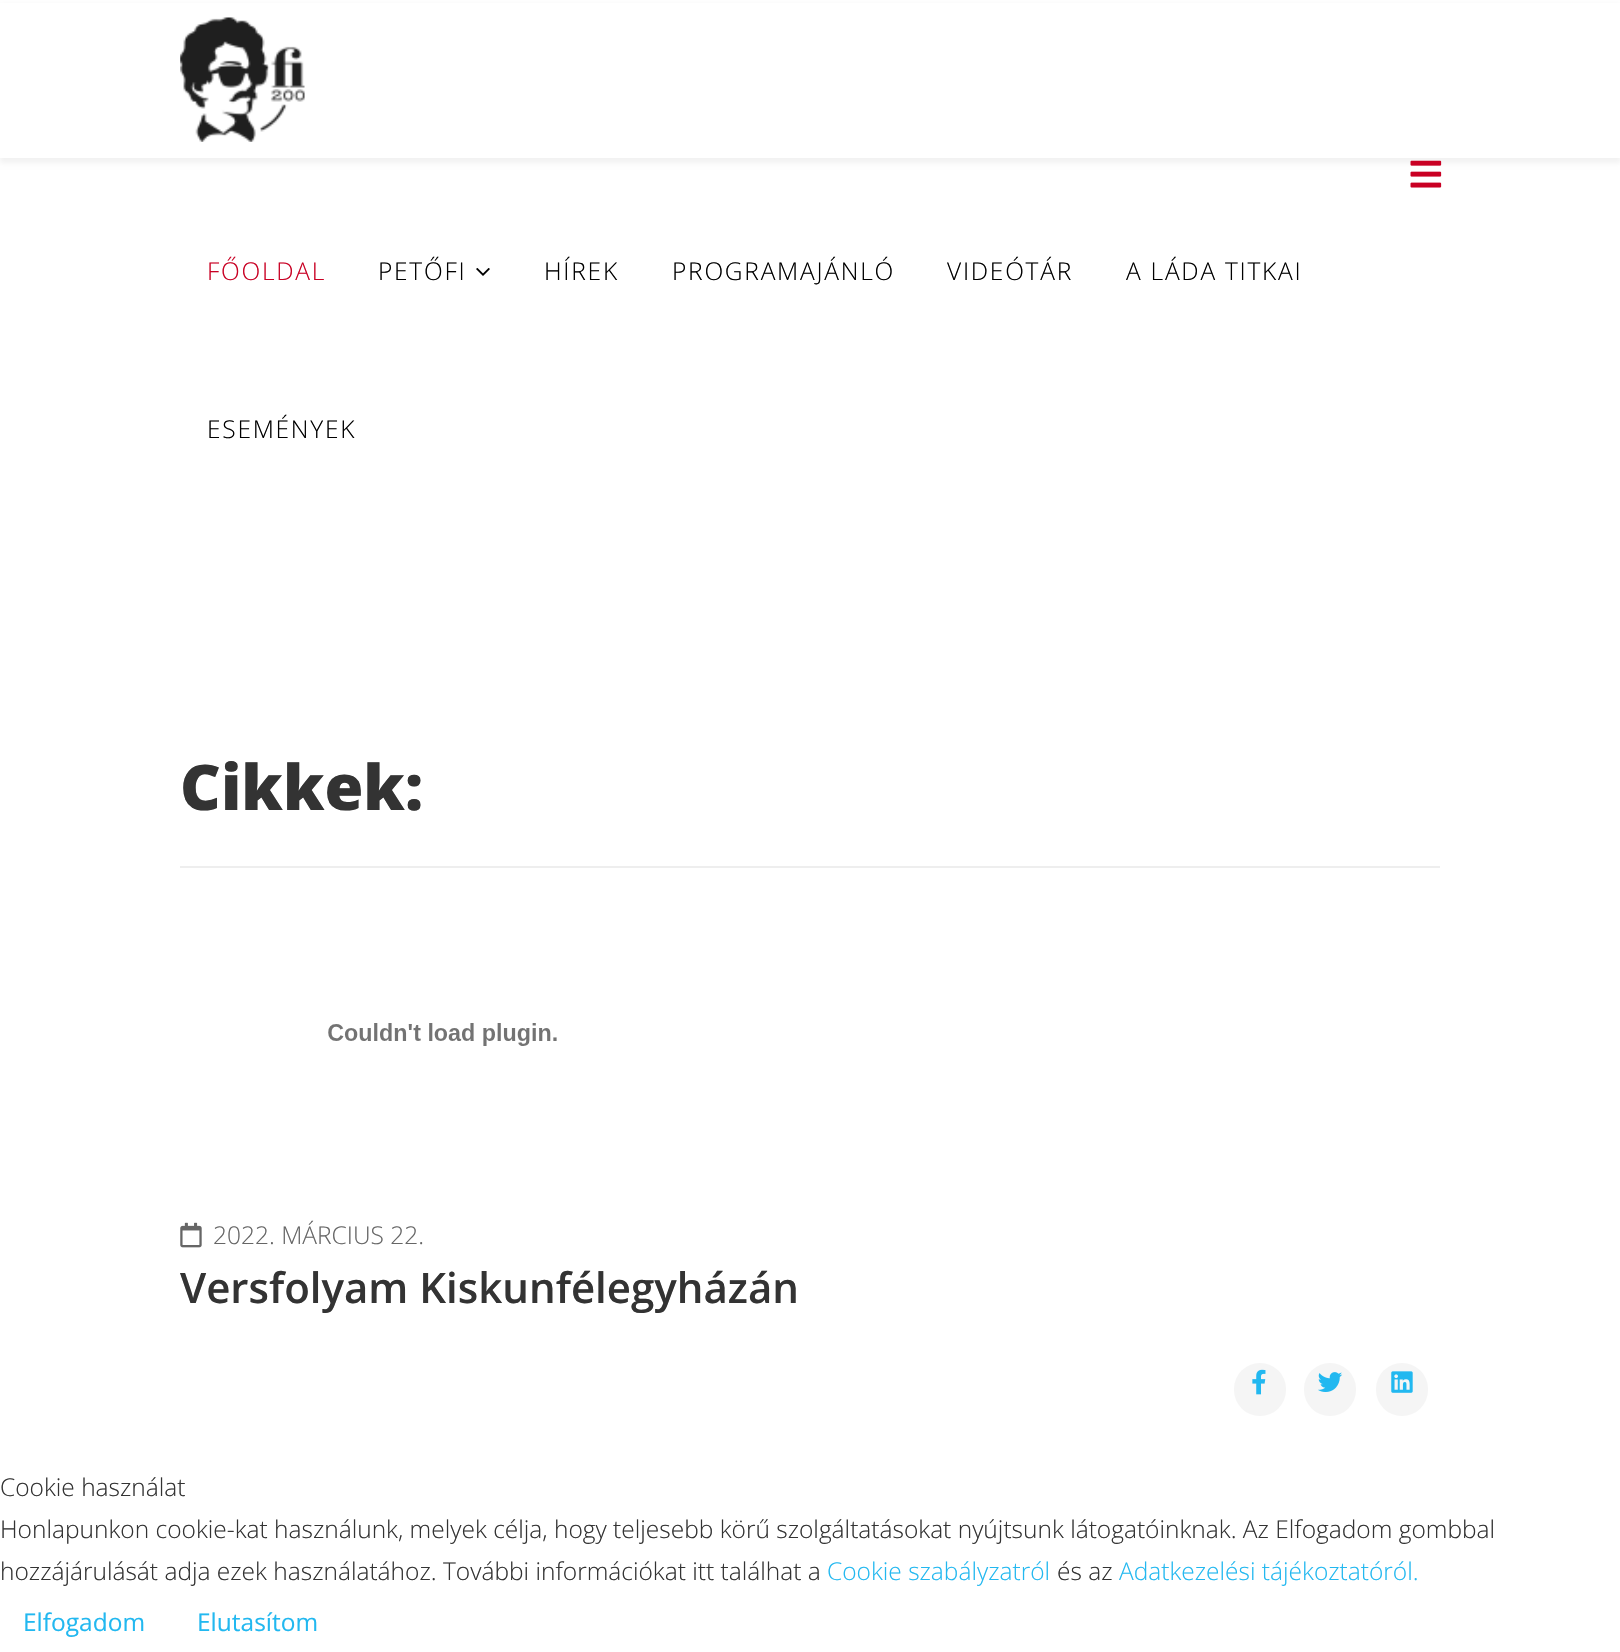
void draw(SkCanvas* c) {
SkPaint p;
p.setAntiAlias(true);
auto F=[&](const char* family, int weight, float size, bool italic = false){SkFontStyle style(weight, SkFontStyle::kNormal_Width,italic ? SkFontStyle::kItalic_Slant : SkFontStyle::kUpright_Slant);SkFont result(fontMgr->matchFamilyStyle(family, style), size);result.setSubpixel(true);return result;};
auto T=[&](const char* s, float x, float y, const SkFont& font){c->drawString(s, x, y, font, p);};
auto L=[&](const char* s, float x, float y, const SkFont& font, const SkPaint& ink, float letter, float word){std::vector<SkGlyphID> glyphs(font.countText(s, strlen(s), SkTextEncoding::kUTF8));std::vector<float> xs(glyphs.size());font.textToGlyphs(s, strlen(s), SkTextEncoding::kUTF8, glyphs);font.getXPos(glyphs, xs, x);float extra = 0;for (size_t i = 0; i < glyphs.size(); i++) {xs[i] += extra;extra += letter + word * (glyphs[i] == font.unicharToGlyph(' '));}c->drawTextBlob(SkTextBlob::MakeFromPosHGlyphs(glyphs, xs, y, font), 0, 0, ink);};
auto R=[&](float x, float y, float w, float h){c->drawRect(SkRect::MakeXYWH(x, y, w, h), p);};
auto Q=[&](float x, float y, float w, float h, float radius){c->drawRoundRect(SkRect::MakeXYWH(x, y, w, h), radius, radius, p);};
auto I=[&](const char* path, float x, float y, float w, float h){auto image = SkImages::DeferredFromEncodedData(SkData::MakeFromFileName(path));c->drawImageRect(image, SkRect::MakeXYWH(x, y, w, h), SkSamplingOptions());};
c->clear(0xffffffff);
p.setColor(0x0d000000);
p.setMaskFilter(SkMaskFilter::MakeBlur(kNormal_SkBlurStyle, 2.5));
c->drawRect(SkRect::MakeXYWH(0,5,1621,158),p);
p.setMaskFilter(nullptr);
p.setColor(0xffffffff);
R(0,3,1620,155);
I("1.png",180,17,125,125);
I("2.png",1410,160,32,28);
auto f1 = F("Open Sans",300,24.5);
p.setColor(0xffc90124);
L("FŐOLDAL",207,280,f1,p,1.75,0);
p.setColor(0xff000000);
L("PETŐFI",378,280,f1,p,1.75,0);
I("3.png",476,268,14,8);
L("HÍREK",544,280,f1,p,1.75,0);
L("PROGRAMAJÁNLÓ",672,280,f1,p,1.75,0);
L("VIDEÓTÁR",947,280,f1,p,1.75,0);
L("A LÁDA TITKAI",1126,280,f1,p,1.75,0);
L("ESEMÉNYEK",207,438,f1,p,1.75,0);
p.setColor(0xffeeeeee);
R(180,866,1260,2);
auto f2 = F("Open Sans",800,63);
p.setColor(0xff333333);
T("Cikkek:",180,810,f2);
I("4.png",328,1023,229,23);
I("5.png",180,1222,22,26);
p.setColor(0xff666666);
T("2022. MÁRCIUS 22.",213,1244,f1);
auto f3 = F("Open Sans",600,42);
p.setColor(0xff333333);
T("Versfolyam Kiskunfélegyházán",180,1303,f3);
p.setColor(0xfff5f5f5);
Q(1234,1363,52,53,26);
I("6.png",1252,1369,14,26);
Q(1304,1363,52,53,26);
I("7.png",1318,1372,25,20);
Q(1376,1363,52,53,26);
I("8.png",1391,1371,22,22);
p.setColor(0xff333333);
T("Cookie használat",0,1496,f1);
T("Honlapunkon cookie-kat használunk, melyek célja, hogy teljesebb körű szolgáltatásokat nyújtsunk látogatóinknak. Az Elfogadom gombbal",0,1538,f1);
T("hozzájárulását adja ezek használatához. További információkat itt találhat a",0,1580,f1);
p.setColor(0xff22b8f0);
T("Cookie szabályzatról",827,1580,f1);
p.setColor(0xff333333);
T("és az",1057,1580,f1);
p.setColor(0xff22b8f0);
T("Adatkezelési tájékoztatóról.",1119,1580,f1);
auto f4 = F("Open Sans",400,24.5);
T("Elfogadom",23,1631,f4);
T("Elutasítom",197,1631,f4);
}
